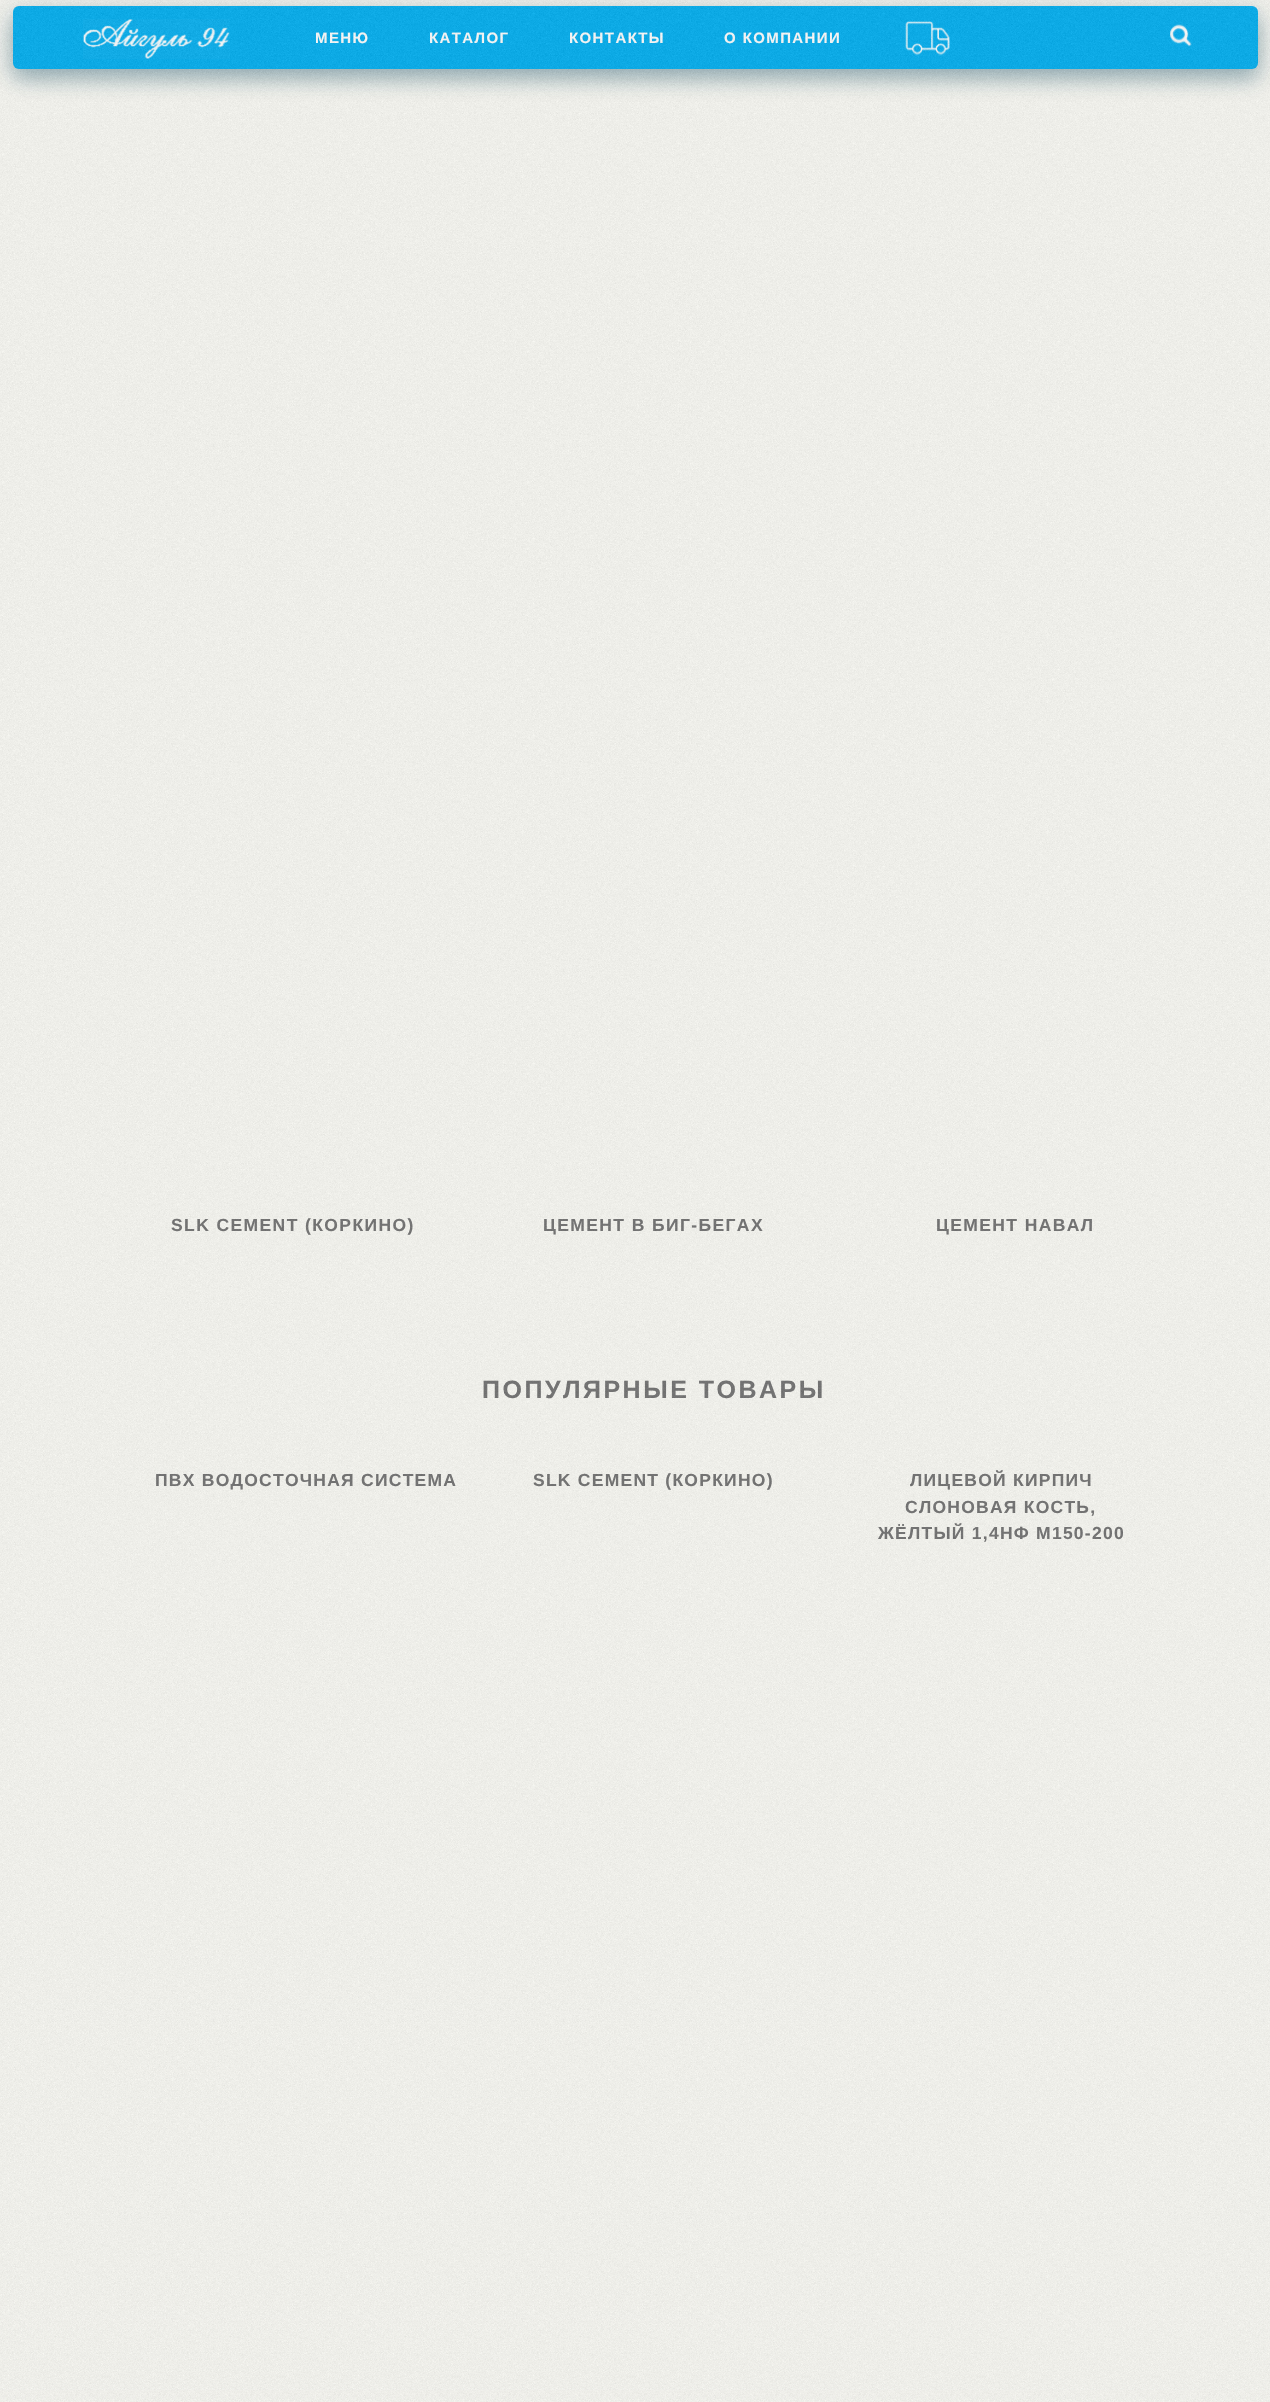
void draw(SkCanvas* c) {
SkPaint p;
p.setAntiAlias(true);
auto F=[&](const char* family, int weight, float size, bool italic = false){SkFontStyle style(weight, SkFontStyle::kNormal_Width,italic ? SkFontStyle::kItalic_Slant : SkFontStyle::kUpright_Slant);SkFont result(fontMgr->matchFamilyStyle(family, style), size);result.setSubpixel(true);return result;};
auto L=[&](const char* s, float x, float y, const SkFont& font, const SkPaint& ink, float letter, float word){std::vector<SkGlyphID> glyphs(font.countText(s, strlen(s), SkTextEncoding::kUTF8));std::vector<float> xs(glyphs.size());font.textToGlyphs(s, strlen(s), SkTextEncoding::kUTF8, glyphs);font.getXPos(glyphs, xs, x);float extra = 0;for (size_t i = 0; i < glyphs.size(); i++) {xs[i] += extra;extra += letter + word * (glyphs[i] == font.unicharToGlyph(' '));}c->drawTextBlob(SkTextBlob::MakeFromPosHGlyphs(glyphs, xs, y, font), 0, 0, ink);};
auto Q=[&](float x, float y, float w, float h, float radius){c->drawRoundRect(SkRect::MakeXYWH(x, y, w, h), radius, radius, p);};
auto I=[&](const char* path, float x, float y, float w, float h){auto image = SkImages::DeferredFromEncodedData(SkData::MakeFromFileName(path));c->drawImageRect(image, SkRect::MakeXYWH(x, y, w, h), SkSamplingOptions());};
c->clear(0xfffbfbf5);
p.setColor(0x592d6175);
p.setMaskFilter(SkMaskFilter::MakeBlur(kNormal_SkBlurStyle, 12.5));
c->drawRoundRect(SkRect::MakeXYWH(13,14,1245,62),6,6,p);
p.setMaskFilter(nullptr);
p.setColor(0x4a3a6e82);
p.setMaskFilter(SkMaskFilter::MakeBlur(kNormal_SkBlurStyle, 10));
c->drawRoundRect(SkRect::MakeXYWH(13,16,1245,63),6,6,p);
p.setMaskFilter(nullptr);
p.setColor(0xff00aff1);
Q(13,6,1245,63,6);
I("2.png",83,19,147,40);
auto f1 = F("Liberation Sans",700,15);
p.setColor(0xffffffff);
L("МЕНЮ",315,43,f1,p,1.4,0);
L("КАТАЛОГ",429,43,f1,p,1.4,0);
L("КОНТАКТЫ",569,43,f1,p,1.4,0);
L("О КОМПАНИИ",724,43,f1,p,1.4,0);
I("3.png",905,21,45,35);
I("4.png",1170,24,22,23);
auto f2 = F("Liberation Sans",700,17.5);
p.setColor(0xff727272);
L("SLK CEMENT (КОРКИНО)",171,1231,f2,p,1.4,0);
L("ЦЕМЕНТ В БИГ-БЕГАХ",543,1231,f2,p,1.4,0);
L("ЦЕМЕНТ НАВАЛ",936,1231,f2,p,1.4,0);
auto f3 = F("Liberation Sans",700,25);
L("ПОПУЛЯРНЫЕ ТОВАРЫ",482,1398,f3,p,2.5,0);
L("ПВХ ВОДОСТОЧНАЯ СИСТЕМА",155,1486,f2,p,1.25,0);
L("SLK CEMENT (КОРКИНО)",533,1486,f2,p,1.25,0);
L("ЛИЦЕВОЙ КИРПИЧ",910,1486,f2,p,1.25,0);
L("СЛОНОВАЯ КОСТЬ,",905,1513,f2,p,1.25,0);
L("ЖЁЛТЫЙ 1,4НФ M150-200",878,1539,f2,p,1.25,0);
I("1.png",0,0,1270,2402);
}
